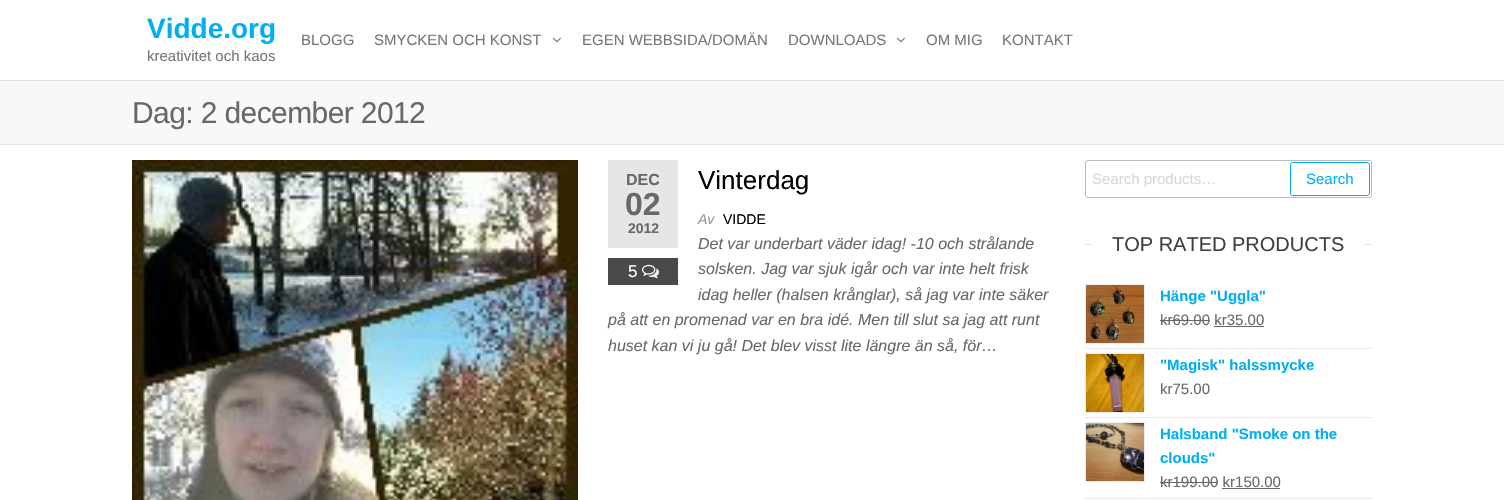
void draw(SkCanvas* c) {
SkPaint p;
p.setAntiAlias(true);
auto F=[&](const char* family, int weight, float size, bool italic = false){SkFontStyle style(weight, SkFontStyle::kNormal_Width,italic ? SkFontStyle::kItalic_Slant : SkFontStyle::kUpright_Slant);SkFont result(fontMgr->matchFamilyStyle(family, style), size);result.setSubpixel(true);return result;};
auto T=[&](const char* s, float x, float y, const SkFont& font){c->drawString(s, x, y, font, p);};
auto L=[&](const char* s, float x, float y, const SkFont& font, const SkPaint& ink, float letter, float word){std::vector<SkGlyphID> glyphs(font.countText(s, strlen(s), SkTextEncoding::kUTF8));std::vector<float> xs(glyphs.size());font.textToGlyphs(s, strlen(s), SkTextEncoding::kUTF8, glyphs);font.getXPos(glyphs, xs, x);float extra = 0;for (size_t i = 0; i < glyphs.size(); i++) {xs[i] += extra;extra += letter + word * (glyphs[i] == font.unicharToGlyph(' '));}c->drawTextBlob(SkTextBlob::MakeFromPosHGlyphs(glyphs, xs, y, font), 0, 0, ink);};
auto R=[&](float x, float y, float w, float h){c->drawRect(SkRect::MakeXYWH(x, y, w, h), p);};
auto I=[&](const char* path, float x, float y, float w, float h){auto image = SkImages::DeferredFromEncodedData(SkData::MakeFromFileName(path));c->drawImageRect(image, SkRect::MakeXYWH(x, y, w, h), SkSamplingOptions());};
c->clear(0xffffffff);
p.setColor(0xffe2e2e2);
R(0,80,1504,1);
auto f1 = F("Liberation Sans",700,28);
p.setColor(0xff00aff2);
T("Vidde.org",147,38,f1);
auto f2 = F("Liberation Sans",400,15);
p.setColor(0xff777777);
T("kreativitet och kaos",147,61,f2);
T("BLOGG",301,45,f2);
T("SMYCKEN OCH KONST",374,45,f2);
I("1.png",552,37,9,6);
T("EGEN WEBBSIDA/DOMÄN",582,45,f2);
T("DOWNLOADS",788,45,f2);
I("1.png",896,37,9,6);
T("OM MIG",926,45,f2);
T("KONTAKT",1002,45,f2);
p.setColor(0xfff8f8f8);
R(0,81,1504,63);
p.setColor(0xffe2e2e2);
R(0,144,1504,1);
auto f3 = F("Liberation Sans",400,30);
p.setColor(0xff686868);
L("Dag: 2 december 2012",132,123,f3,p,-.6,0);
I("2.png",132,160,446,340);
p.setColor(0xffe6e6e6);
R(608,160,70,88);
auto f4 = F("Liberation Sans",700,16);
p.setColor(0xff686868);
T("DEC",626,185,f4);
auto f5 = F("Liberation Sans",700,32);
T("02",625,215,f5);
auto f6 = F("Liberation Sans",700,14);
T("2012",628,233,f6);
p.setColor(0xff4a4a4a);
R(608,258,70,27);
auto f7 = F("Liberation Sans",400,17);
p.setColor(0xffffffff);
T("5",628,277,f7);
I("3.png",642,264,17,15);
auto f8 = F("Liberation Sans",400,26);
p.setColor(0xff000000);
T("Vinterdag",698,189,f8);
auto f9 = F("Liberation Sans",400,14,true);
p.setColor(0xff959595);
T("Av",698,224,f9);
auto f10 = F("Liberation Sans",400,14);
p.setColor(0xff000000);
T("VIDDE",723,224,f10);
auto f11 = F("Liberation Sans",400,16,true);
p.setColor(0xff686868);
T("Det var underbart väder idag! -10 och strålande",698,249,f11);
T("solsken. Jag var sjuk igår och var inte helt frisk",698,274,f11);
T("idag heller (halsen krånglar), så jag var inte säker",698,300,f11);
T("på att en promenad var en bra idé. Men till slut sa jag att runt",608,325,f11);
T("huset kan vi ju gå! Det blev visst lite längre än så, för…",608,351,f11);
p.setStroke(true);
p.setStrokeWidth(1);
p.setColor(0xffbbbbbb);
c->drawRoundRect(SkRect::MakeXYWH(1085.5,160.5,286,37),2.5,2.5,p);
p.setStroke(false);
p.setColor(0xffd7d7d7);
T("Search products…",1092,184,f2);
p.setStroke(true);
p.setColor(0xff00aff2);
c->drawRoundRect(SkRect::MakeXYWH(1290.5,162.5,79,33),2.5,2.5,p);
p.setStroke(false);
T("Search",1306,184,f2);
p.setColor(0xffe2e2e2);
R(1085,244,287,1);
p.setColor(0xffffffff);
R(1092,244,272,1);
auto f12 = F("Liberation Sans",400,20);
p.setColor(0xff404040);
T("TOP RATED PRODUCTS",1112,251,f12);
p.setColor(0xffebebeb);
R(1085,348,287,1);
p.setStroke(true);
c->drawRect(SkRect::MakeXYWH(1085.5,284.5,59,59),p);
I("4.png",1086,285,58,58);
auto f13 = F("Liberation Sans",700,15);
p.setStroke(false);
p.setColor(0xff00aff2);
T("Hänge \"Uggla\"",1160,301,f13);
p.setColor(0xff686868);
T("kr69.00 kr35.00",1160,325,f2);
R(1160,320,50,1);
R(1214,326,50,1);
p.setColor(0xffebebeb);
R(1085,417,287,1);
p.setStroke(true);
c->drawRect(SkRect::MakeXYWH(1085.5,353.5,59,59),p);
I("5.png",1086,354,58,58);
p.setStroke(false);
p.setColor(0xff00aff2);
T("\"Magisk\" halssmycke",1160,370,f13);
p.setColor(0xff686868);
T("kr75.00",1160,394,f2);
p.setColor(0xffebebeb);
R(1085,498,287,1);
p.setStroke(true);
c->drawRect(SkRect::MakeXYWH(1085.5,422.5,59,59),p);
I("6.png",1086,423,58,58);
p.setStroke(false);
p.setColor(0xff00aff2);
T("Halsband \"Smoke on the",1160,439,f13);
T("clouds\"",1160,463,f13);
p.setColor(0xff686868);
T("kr199.00 kr150.00",1160,487,f2);
R(1160,482,58,1);
R(1222,488,58,1);
}
